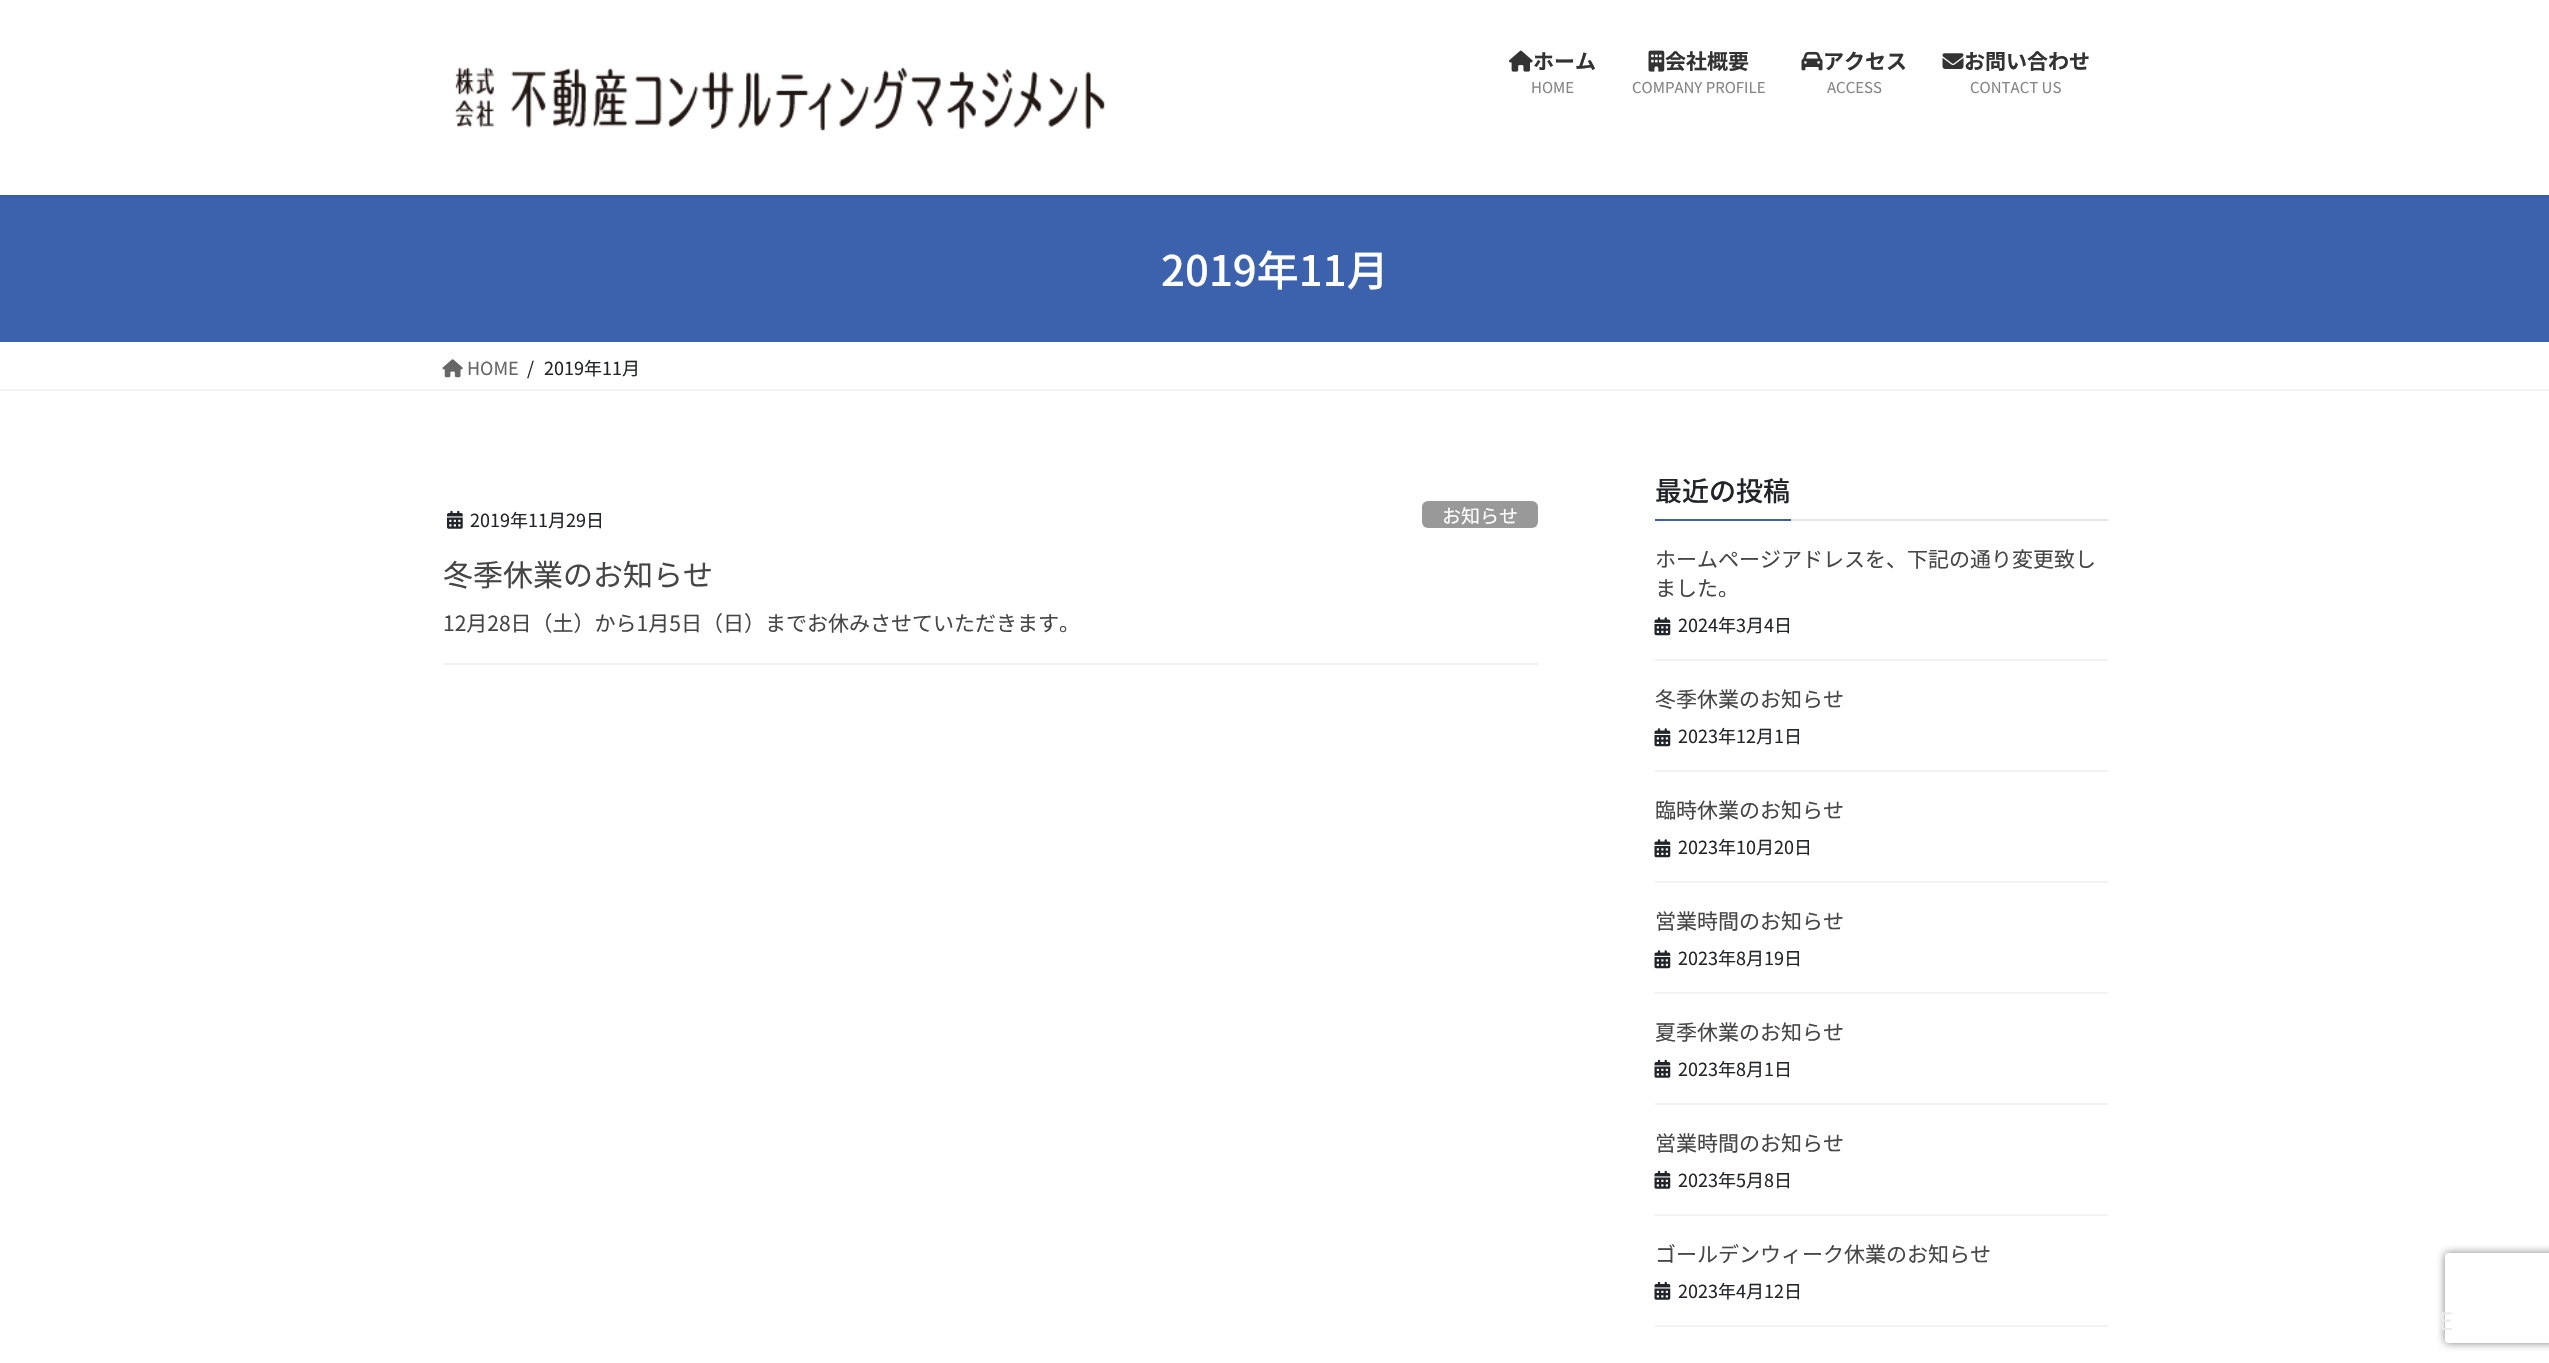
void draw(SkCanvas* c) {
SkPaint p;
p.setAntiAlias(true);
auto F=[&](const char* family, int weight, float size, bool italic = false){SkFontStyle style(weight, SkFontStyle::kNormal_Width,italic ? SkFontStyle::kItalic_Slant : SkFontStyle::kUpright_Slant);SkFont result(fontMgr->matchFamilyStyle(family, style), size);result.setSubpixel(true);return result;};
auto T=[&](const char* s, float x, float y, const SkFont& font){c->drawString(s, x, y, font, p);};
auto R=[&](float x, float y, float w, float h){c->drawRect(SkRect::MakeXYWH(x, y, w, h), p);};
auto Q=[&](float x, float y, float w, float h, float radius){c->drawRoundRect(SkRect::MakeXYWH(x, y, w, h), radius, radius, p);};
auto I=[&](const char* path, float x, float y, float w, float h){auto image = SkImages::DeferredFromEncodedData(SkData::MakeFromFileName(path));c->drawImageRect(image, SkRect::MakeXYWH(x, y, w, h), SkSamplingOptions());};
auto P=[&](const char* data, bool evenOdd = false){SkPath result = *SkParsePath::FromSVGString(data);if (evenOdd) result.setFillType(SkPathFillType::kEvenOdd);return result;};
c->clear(0xffffffff);
p.setColor(0xff3d62ad);
R(0,195,2549,147);
c->save();
c->clipRect(SkRect::MakeXYWH(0,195,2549,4));
p.setColor(0x1a000000);
p.setMaskFilter(SkMaskFilter::MakeBlur(kNormal_SkBlurStyle, 2));
c->drawRect(SkRect::MakeXYWH(0,2,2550,195),p);
p.setMaskFilter(nullptr);
c->restore();
I("1.png",455,67,650,64);
I("2.png",1509,50,24,22);
auto f1 = F("Noto Sans JP",700,21);
p.setColor(0xff333333);
T("ホーム",1533,69,f1);
auto f2 = F("Noto Sans JP",400,15);
p.setColor(0xff858585);
T("HOME",1531,93,f2);
I("3.png",1648,50,17,22);
p.setColor(0xff333333);
T("会社概要",1665,69,f1);
p.setColor(0xff858585);
T("COMPANY PROFILE",1632,93,f2);
I("4.png",1801,51,22,20);
p.setColor(0xff333333);
T("アクセス",1823,69,f1);
p.setColor(0xff858585);
T("ACCESS",1827,93,f2);
I("5.png",1942,53,22,16);
p.setColor(0xff333333);
T("お問い合わせ",1964,69,f1);
p.setColor(0xff858585);
T("CONTACT US",1970,93,f2);
auto f3 = F("Noto Sans JP",500,42);
p.setColor(0xffffffff);
T("2019年11月",1161,286,f3);
p.setColor(0xfff2f2f2);
R(0,389,2549,2);
I("6.png",442,359,21,19);
auto f4 = F("Noto Sans JP",400,18);
p.setColor(0xff666666);
T("HOME",467,375,f4);
p.setColor(0xff212529);
T("/",527,375,f4);
T("2019年11月",544,375,f4);
p.setColor(0xfff2f2f2);
R(443,663,1095,2);
I("7.png",447,510,16,19);
p.setColor(0xff212529);
T("2019年11月29日",470,527,f4);
p.setColor(0xff999999);
Q(1422,501,116,27,6);
auto f5 = F("Noto Sans JP",400,19);
p.setColor(0xffffffff);
T("お知らせ",1442,523,f5);
auto f6 = F("Noto Sans JP",400,30);
p.setColor(0xff464646);
T("冬季休業のお知らせ",443,586,f6);
auto f7 = F("Noto Sans JP",400,21);
T("12月28日（土）から1月5日（日）までお休みさせていただきます。",443,631,f7);
p.setColor(0xffe6e6e6);
R(1791,519,317,2);
auto f8 = F("Noto Sans JP",500,27);
p.setColor(0xff212529);
T("最近の投稿",1655,501,f8);
p.setColor(0xff3d62ad);
R(1655,519,136,2);
p.setColor(0xfff2f2f2);
R(1655,659,453,2);
p.setColor(0xff464646);
T("ホームページアドレスを、下記の通り変更致し",1655,567,f7);
T("ました。",1655,596,f7);
I("8.png",1654,617,17,19);
p.setColor(0xff212529);
T("2024年3月4日",1678,632,f4);
p.setColor(0xfff2f2f2);
R(1655,770,453,2);
p.setColor(0xff464646);
T("冬季休業のお知らせ",1655,707,f7);
I("8.png",1654,728,17,19);
p.setColor(0xff212529);
T("2023年12月1日",1678,743,f4);
p.setColor(0xfff2f2f2);
R(1655,881,453,2);
p.setColor(0xff464646);
T("臨時休業のお知らせ",1655,818,f7);
I("8.png",1654,839,17,19);
p.setColor(0xff212529);
T("2023年10月20日",1678,854,f4);
p.setColor(0xfff2f2f2);
R(1655,992,453,2);
p.setColor(0xff464646);
T("営業時間のお知らせ",1655,929,f7);
I("8.png",1654,950,17,19);
p.setColor(0xff212529);
T("2023年8月19日",1678,965,f4);
p.setColor(0xfff2f2f2);
R(1655,1103,453,2);
p.setColor(0xff464646);
T("夏季休業のお知らせ",1655,1040,f7);
I("9.png",1654,1059,17,19);
p.setColor(0xff212529);
T("2023年8月1日",1678,1076,f4);
p.setColor(0xfff2f2f2);
R(1655,1214,453,2);
p.setColor(0xff464646);
T("営業時間のお知らせ",1655,1151,f7);
I("9.png",1654,1170,17,19);
p.setColor(0xff212529);
T("2023年5月8日",1678,1187,f4);
p.setColor(0xfff2f2f2);
R(1655,1325,453,2);
p.setColor(0xff464646);
T("ゴールデンウィーク休業のお知らせ",1655,1262,f7);
I("9.png",1654,1281,17,19);
p.setColor(0xff212529);
T("2023年4月12日",1678,1298,f4);
c->save();
c->clipPath(P("M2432 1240h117v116h-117zm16 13h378c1.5 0 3 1.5 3 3v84c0 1.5-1.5 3-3 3h-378c-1.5 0-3-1.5-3-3v-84c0-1.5 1.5-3 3-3z",true),true);
p.setColor(0xff808080);
p.setMaskFilter(SkMaskFilter::MakeBlur(kNormal_SkBlurStyle, 4));
c->drawRoundRect(SkRect::MakeXYWH(2445,1253,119,90),3,3,p);
p.setMaskFilter(nullptr);
c->restore();
auto f9 = F("Noto Sans JP",400,24);
p.setColor(0xffebebeb);
T("E",2439,1330,f9);
}
